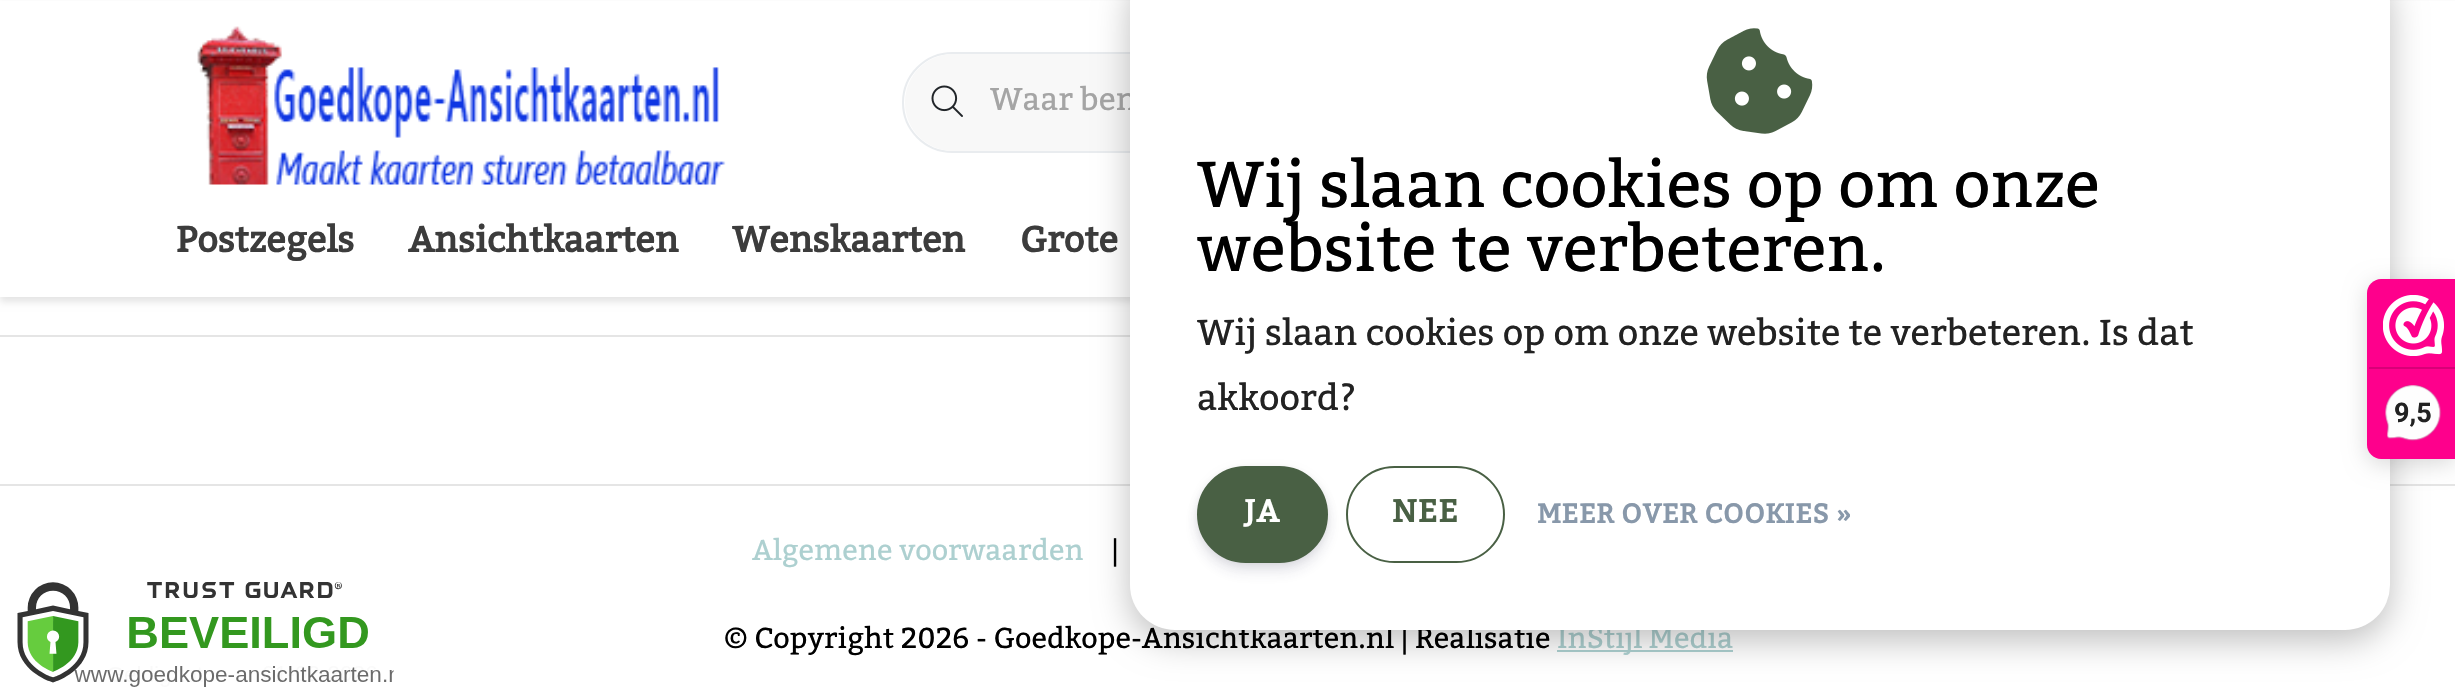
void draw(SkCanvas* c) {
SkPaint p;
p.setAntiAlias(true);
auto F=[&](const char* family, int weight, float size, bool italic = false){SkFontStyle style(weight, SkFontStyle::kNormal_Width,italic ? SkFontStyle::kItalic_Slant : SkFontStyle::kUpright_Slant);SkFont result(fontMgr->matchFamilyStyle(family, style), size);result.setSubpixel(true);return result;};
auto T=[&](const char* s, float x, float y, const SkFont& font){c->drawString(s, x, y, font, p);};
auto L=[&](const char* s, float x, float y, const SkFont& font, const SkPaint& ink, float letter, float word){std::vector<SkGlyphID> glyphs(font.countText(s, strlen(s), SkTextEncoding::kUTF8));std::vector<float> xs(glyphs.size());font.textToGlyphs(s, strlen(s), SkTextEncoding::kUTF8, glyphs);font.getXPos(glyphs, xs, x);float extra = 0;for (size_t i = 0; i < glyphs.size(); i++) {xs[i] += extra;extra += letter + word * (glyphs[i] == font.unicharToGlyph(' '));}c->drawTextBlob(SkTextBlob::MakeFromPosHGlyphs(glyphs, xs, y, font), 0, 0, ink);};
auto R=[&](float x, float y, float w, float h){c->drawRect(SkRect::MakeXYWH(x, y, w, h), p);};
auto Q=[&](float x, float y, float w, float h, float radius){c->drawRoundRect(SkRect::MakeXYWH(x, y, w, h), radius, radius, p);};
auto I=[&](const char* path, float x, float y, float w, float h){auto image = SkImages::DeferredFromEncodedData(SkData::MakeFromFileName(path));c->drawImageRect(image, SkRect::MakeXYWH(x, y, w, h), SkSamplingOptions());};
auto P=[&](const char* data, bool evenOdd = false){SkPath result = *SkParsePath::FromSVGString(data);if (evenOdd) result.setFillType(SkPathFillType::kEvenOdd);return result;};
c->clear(0xffffffff);
p.setColor(0x1a000000);
p.setMaskFilter(SkMaskFilter::MakeBlur(kNormal_SkBlurStyle, 3.5));
c->drawRect(SkRect::MakeXYWH(0,5,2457,297),p);
p.setMaskFilter(nullptr);
p.setColor(0xffffffff);
R(0,1,2455,296);
I("1.png",197,26,529,159);
p.setStroke(true);
p.setStrokeWidth(2);
p.setColor(0xffe9ecef);
c->drawRoundRect(SkRect::MakeXYWH(903,53,651,99),49.5,49.5,p);
p.setStroke(false);
p.setColor(0xfff8f8f8);
c->drawPath(P("M953.5 54h36.5v97h-36.5c-27 0-48.5-21.5-48.5-48.5c0-27 21.5-48.5 48.5-48.5z"),p);
I("2.png",931,85,32,32);
R(990,54,140,97);
auto f1 = F("Kadwa",400,31.5);
p.setColor(0xffa5a5a5);
T("Waar ben",990,110,f1);
auto f2 = F("Kadwa",700,36);
p.setColor(0xff3c3c3c);
T("Postzegels",176,252,f2);
T("Ansichtkaarten",408,252,f2);
T("Wenskaarten",732,252,f2);
T("Grote",1020,252,f2);
p.setColor(0xffe5e5e5);
R(0,335,1130,2);
R(0,484,2455,2);
auto f3 = F("Kadwa",400,28.8);
p.setColor(0xffadd0d0);
T("Algemene voorwaarden",752,560,f3);
p.setColor(0xff000000);
T("|",1111,560,f3);
T("© Copyright 2026 - Goedkope-Ansichtkaarten.nl | Realisatie",724,648,f3);
p.setColor(0xffadd0d0);
R(1557,650,176,2);
T("InStijl Media",1557,648,f3);
p.setColor(0x40000000);
p.setMaskFilter(SkMaskFilter::MakeBlur(kNormal_SkBlurStyle, 17));
c->drawRoundRect(SkRect::MakeXYWH(1130,-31,1260,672),45,45,p);
p.setMaskFilter(nullptr);
p.setColor(0xffffffff);
Q(1130,-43,1260,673,45);
I("3.png",1706,28,107,106);
auto f4 = F("Kadwa",400,64.75);
p.setColor(0xff000000);
T("Wij slaan cookies op om onze",1197,207,f4);
T("website te verbeteren.",1197,271,f4);
auto f5 = F("Kadwa",400,36);
p.setColor(0xff222222);
T("Wij slaan cookies op om onze website te verbeteren. Is dat",1197,345,f5);
T("akkoord?",1197,410,f5);
p.setColor(0x14000000);
p.setMaskFilter(SkMaskFilter::MakeBlur(kNormal_SkBlurStyle, 3.5));
c->drawRoundRect(SkRect::MakeXYWH(1197,468,131,97),48.5,48.5,p);
p.setMaskFilter(nullptr);
p.setColor(0x1c32325d);
p.setMaskFilter(SkMaskFilter::MakeBlur(kNormal_SkBlurStyle, 7));
c->drawRoundRect(SkRect::MakeXYWH(1197,475,131,97),48.5,48.5,p);
p.setMaskFilter(nullptr);
p.setColor(0xff496044);
c->drawRoundRect(SkRect::MakeXYWH(1198,467,129,95),47.5,47.5,p);
p.setStroke(true);
c->drawRoundRect(SkRect::MakeXYWH(1198,467,129,95),47.5,47.5,p);
auto f6 = F("Kadwa",700,31.5);
p.setStroke(false);
p.setColor(0xffffffff);
L("JA",1244,522,f6,p,1,0);
p.setStroke(true);
p.setColor(0xff496044);
c->drawRoundRect(SkRect::MakeXYWH(1347,467,157,95),47.5,47.5,p);
p.setStroke(false);
L("NEE",1392,522,f6,p,1,0);
auto f7 = F("Kadwa",700,27);
p.setColor(0xff8898aa);
L("MEER OVER COOKIES »",1537,523,f7,p,.7,0);
p.setColor(0x26000000);
p.setMaskFilter(SkMaskFilter::MakeBlur(kNormal_SkBlurStyle, 11));
c->drawRoundRect(SkRect::MakeXYWH(2367,284,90,180),14,14,p);
p.setMaskFilter(nullptr);
p.setColor(0xfffe008c);
c->drawPath(P("M2381 279h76v180h-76c-7.5 0-14-6.5-14-14v-152c0-7.5 6.5-14 14-14z"),p);
I("4.png",2383,295,61,61);
p.setColor(0xffd80077);
R(2369,367,86,2);
I("5.png",2385,385,57,56);
auto f8 = F("Roboto",700,27);
p.setColor(0xff222222);
T("9,5",2394,422,f8);
I("6.png",17,582,377,105);
}
